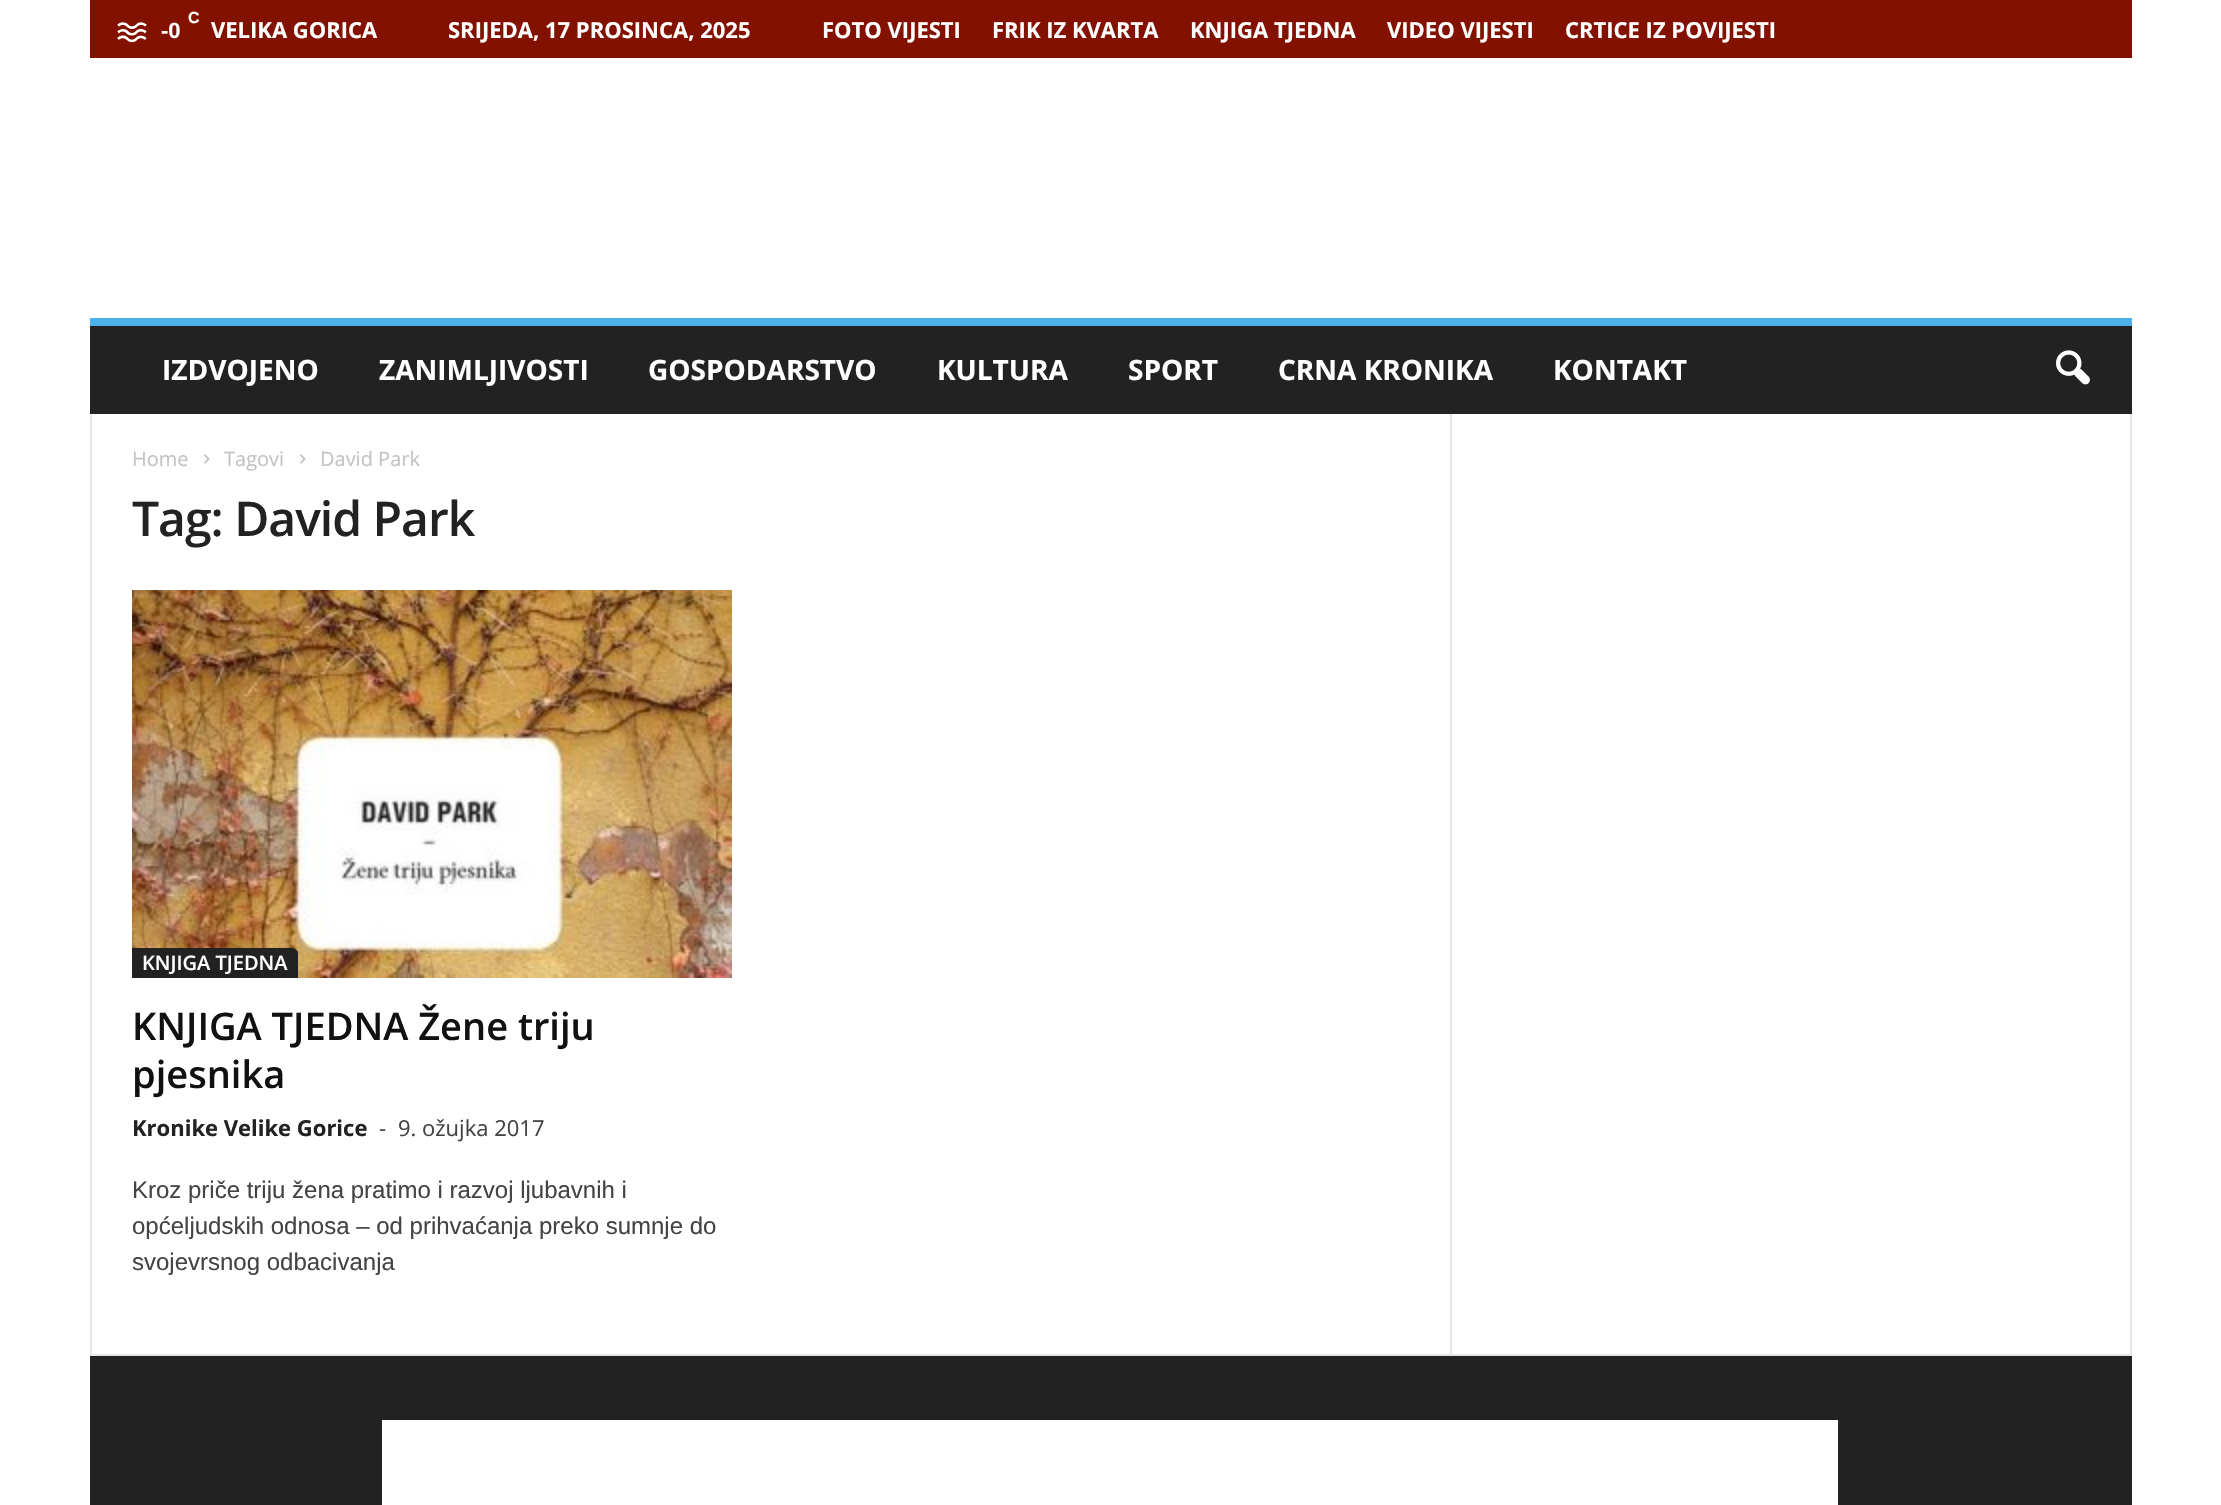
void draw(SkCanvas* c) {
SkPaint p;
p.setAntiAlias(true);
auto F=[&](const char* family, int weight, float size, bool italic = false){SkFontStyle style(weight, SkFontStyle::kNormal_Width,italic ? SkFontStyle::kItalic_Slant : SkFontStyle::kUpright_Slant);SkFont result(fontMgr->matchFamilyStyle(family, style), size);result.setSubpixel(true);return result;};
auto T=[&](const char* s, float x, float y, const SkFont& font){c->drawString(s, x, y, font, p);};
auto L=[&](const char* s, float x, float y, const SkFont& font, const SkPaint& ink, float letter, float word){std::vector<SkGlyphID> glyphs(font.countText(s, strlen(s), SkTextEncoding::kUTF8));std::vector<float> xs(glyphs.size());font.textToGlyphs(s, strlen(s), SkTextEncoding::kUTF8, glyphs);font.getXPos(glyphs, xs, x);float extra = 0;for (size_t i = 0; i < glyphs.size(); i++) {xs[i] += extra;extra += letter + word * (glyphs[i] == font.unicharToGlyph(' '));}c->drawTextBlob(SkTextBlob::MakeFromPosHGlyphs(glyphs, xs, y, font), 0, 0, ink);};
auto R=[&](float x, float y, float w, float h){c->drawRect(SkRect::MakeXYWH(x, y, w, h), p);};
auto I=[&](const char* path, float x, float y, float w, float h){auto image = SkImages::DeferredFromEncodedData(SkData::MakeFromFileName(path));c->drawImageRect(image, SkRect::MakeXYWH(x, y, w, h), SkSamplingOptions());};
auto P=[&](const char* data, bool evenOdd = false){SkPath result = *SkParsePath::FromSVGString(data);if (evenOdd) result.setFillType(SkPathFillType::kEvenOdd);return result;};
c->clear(0xffffffff);
p.setColor(0xff821100);
R(90,0,2042,58);
I("1.png",117,22,30,21);
auto f1 = F("Liberation Sans",700,16);
p.setColor(0xffffffff);
T("C",188,23,f1);
auto f2 = F("Liberation Sans",700,22);
T("-0",161,38,f2);
auto f3 = F("Open Sans",700,22);
T("VELIKA GORICA",211,38,f3);
T("SRIJEDA, 17 PROSINCA, 2025",448,38,f3);
T("FOTO VIJESTI",822,38,f3);
T("FRIK IZ KVARTA",992,38,f3);
T("KNJIGA TJEDNA",1190,38,f3);
T("VIDEO VIJESTI",1387,38,f3);
T("CRTICE IZ POVIJESTI",1565,38,f3);
p.setColor(0xff222222);
R(90,326,2042,88);
p.setColor(0xff4db2ec);
R(90,318,2042,8);
auto f4 = F("Open Sans",700,28);
p.setColor(0xffffffff);
T("IZDVOJENO",162,380,f4);
T("ZANIMLJIVOSTI",379,380,f4);
T("GOSPODARSTVO",648,380,f4);
T("KULTURA",937,380,f4);
T("SPORT",1128,380,f4);
T("CRNA KRONIKA",1278,380,f4);
T("KONTAKT",1553,380,f4);
I("2.png",2056,350,34,35);
p.setColor(0xffe6e6e6);
R(90,1354,2042,2);
R(90,414,2,940);
auto f5 = F("Open Sans",400,20);
p.setColor(0xffc3c3c3);
T("Home",132,466,f5);
I("3.png",204,454,6,10);
T("Tagovi",224,466,f5);
I("3.png",300,454,6,10);
T("David Park",320,466,f5);
auto f6 = F("Open Sans",600,48);
p.setColor(0xff222222);
L("Tag: David Park",132,536,f6,p,-1,0);
I("4.png",132,590,600,388);
c->drawPath(P("M132 948h160c3.5 0 6 2.5 6 6v24h-166z"),p);
auto f7 = F("Open Sans",600,20);
p.setColor(0xffffffff);
T("KNJIGA TJEDNA",142,970,f7);
auto f8 = F("Open Sans",600,38);
p.setColor(0xff111111);
T("KNJIGA TJEDNA Žene triju",132,1040,f8);
T("pjesnika",132,1088,f8);
p.setColor(0xff222222);
T("Kronike Velike Gorice",132,1136,f3);
auto f9 = F("Open Sans",400,22);
p.setColor(0xff444444);
T("-",379,1136,f9);
T("9. ožujka 2017",398,1136,f9);
auto f10 = F("Liberation Sans",400,24);
T("Kroz priče triju žena pratimo i razvoj ljubavnih i",132,1198,f10);
T("općeljudskih odnosa – od prihvaćanja preko sumnje do",132,1234,f10);
T("svojevrsnog odbacivanja",132,1270,f10);
p.setColor(0xffe6e6e6);
R(1450,414,2,940);
R(2130,414,2,940);
p.setColor(0xff222222);
R(90,1356,2042,149);
p.setColor(0xffffffff);
R(382,1420,1456,85);
}
